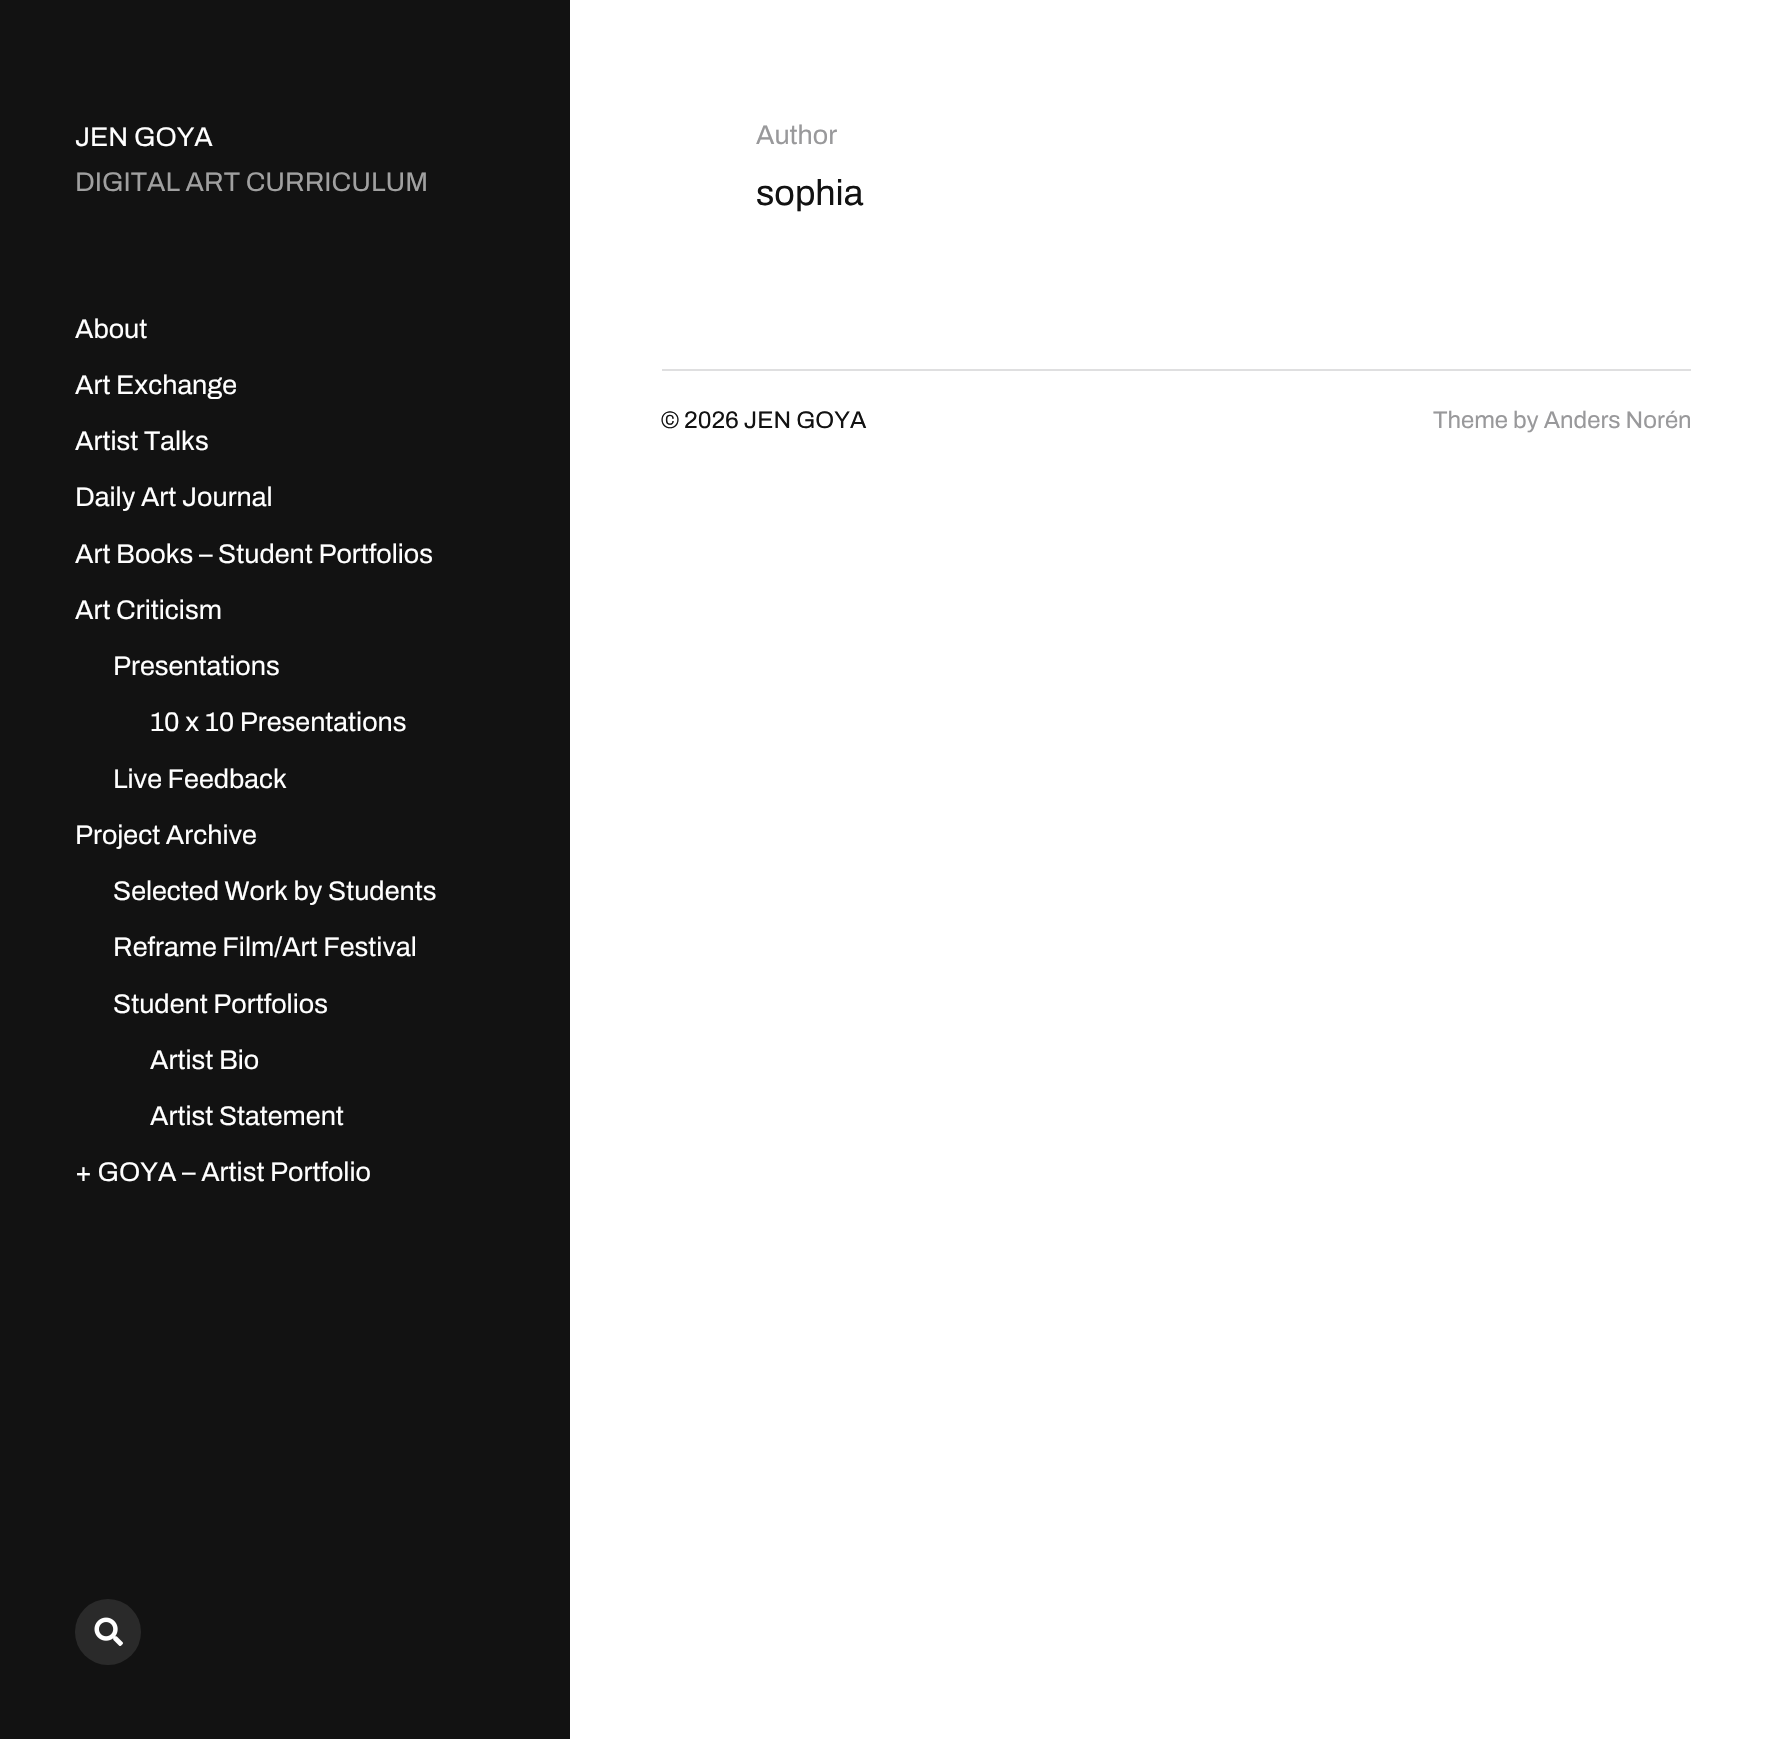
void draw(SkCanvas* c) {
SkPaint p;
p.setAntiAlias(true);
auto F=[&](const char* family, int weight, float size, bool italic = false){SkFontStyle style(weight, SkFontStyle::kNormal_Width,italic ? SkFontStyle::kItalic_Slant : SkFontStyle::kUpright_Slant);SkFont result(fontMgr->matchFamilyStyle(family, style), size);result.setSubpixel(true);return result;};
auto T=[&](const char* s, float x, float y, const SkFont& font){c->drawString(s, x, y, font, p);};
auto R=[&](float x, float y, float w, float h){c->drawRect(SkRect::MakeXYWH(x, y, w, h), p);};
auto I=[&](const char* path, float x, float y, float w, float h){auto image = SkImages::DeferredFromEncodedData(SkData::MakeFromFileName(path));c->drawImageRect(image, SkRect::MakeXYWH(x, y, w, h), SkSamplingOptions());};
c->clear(0xffffffff);
p.setColor(0xff121212);
R(0,0,570,1739);
auto f1 = F("Archivo",600,27);
p.setColor(0xffffffff);
T("JEN GOYA",75,146,f1);
p.setColor(0xffa0a0a0);
T("DIGITAL ART CURRICULUM",75,191,f1);
p.setColor(0xffffffff);
T("About",75,338,f1);
T("Art Exchange",75,394,f1);
T("Artist Talks",75,450,f1);
T("Daily Art Journal",75,506,f1);
T("Art Books – Student Portfolios",75,563,f1);
T("Art Criticism",75,619,f1);
T("Presentations",113,675,f1);
T("10 x 10 Presentations",150,731,f1);
T("Live Feedback",113,788,f1);
T("Project Archive",75,844,f1);
T("Selected Work by Students",113,900,f1);
T("Reframe Film/Art Festival",113,956,f1);
T("Student Portfolios",113,1013,f1);
T("Artist Bio",150,1069,f1);
T("Artist Statement",150,1125,f1);
T("+ GOYA – Artist Portfolio",75,1181,f1);
p.setColor(0xff2a2a2a);
c->drawCircle(108,1632,33,p);
I("1.png",94,1617,29,29);
p.setColor(0xff99999b);
T("Author",756,144,f1);
auto f2 = F("Archivo",600,36);
p.setColor(0xff121212);
T("sophia",756,205,f2);
p.setColor(0xffdfdfe0);
R(662,369,1029,2);
auto f3 = F("Archivo",600,24);
p.setColor(0xff121212);
T("© 2026 JEN GOYA",661,428,f3);
p.setColor(0xff99999b);
T("Theme by Anders Norén",1433,428,f3);
}
